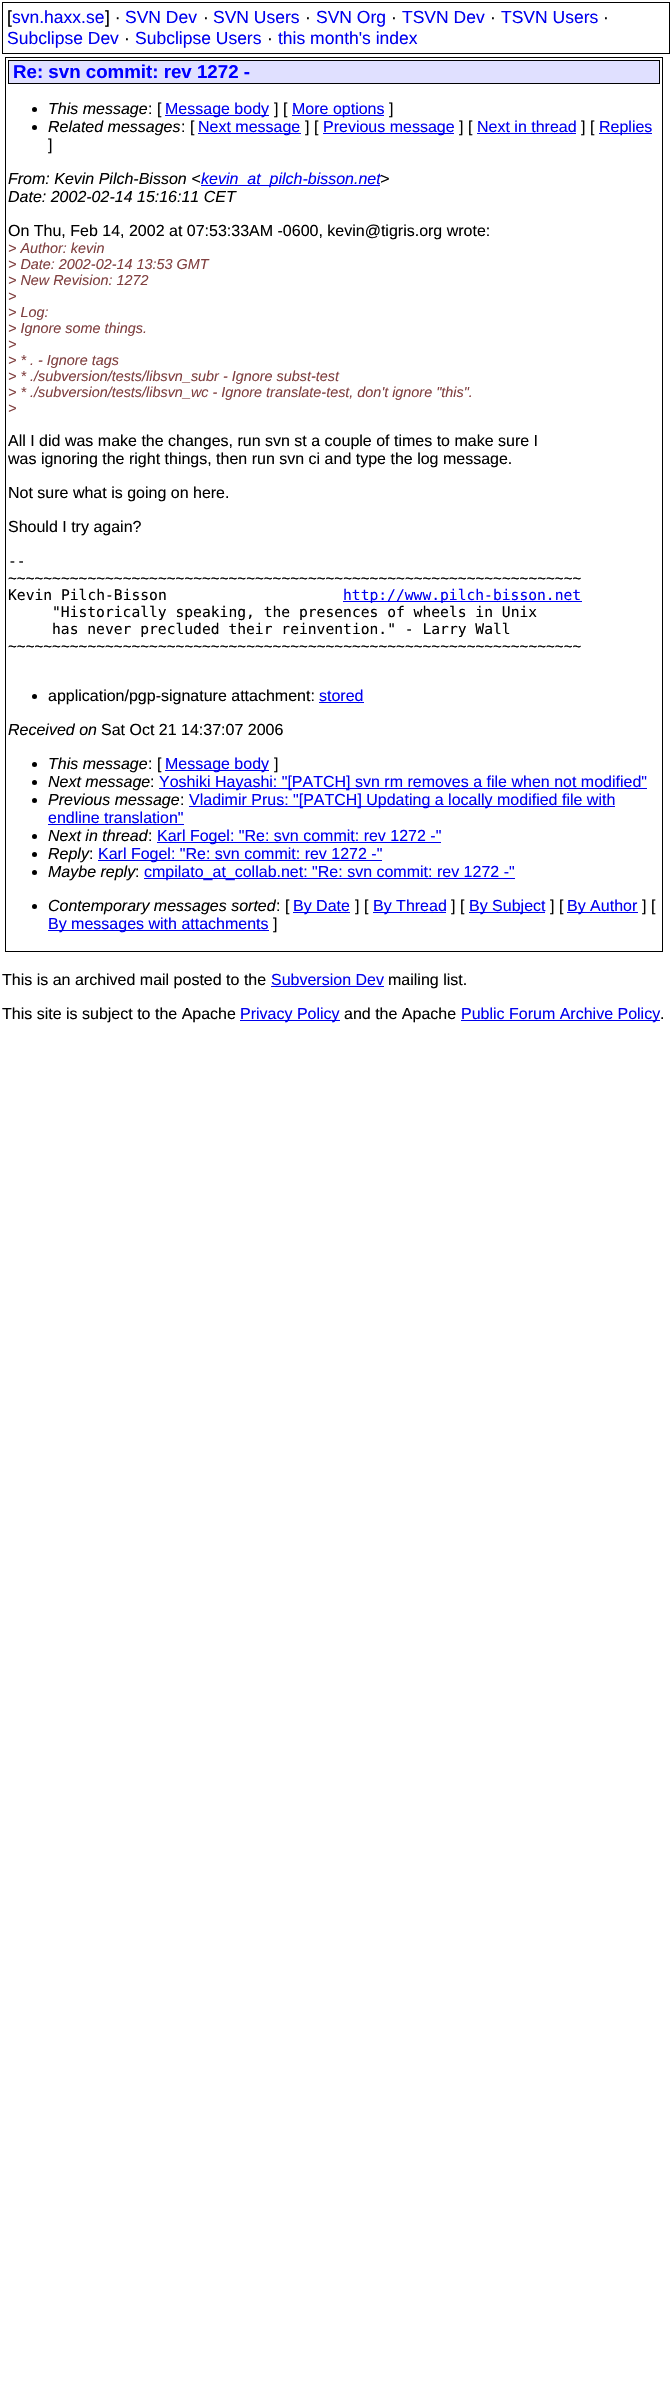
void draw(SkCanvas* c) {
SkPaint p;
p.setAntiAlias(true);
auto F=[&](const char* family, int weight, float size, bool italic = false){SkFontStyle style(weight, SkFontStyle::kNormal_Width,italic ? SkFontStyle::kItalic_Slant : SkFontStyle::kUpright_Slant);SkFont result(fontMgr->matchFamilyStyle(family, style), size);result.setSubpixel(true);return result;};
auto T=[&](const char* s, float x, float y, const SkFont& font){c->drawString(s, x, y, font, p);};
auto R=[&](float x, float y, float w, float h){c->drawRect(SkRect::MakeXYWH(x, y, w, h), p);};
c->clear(0xffffffff);
p.setStroke(true);
p.setStrokeWidth(1);
p.setColor(0xff000000);
c->drawRect(SkRect::MakeXYWH(2.5,2.5,667,51),p);
auto f1 = F("Liberation Sans",400,17.5);
p.setStroke(false);
T("[",7,23,f1);
p.setColor(0xff0000ee);
T("svn.haxx.se",12,23,f1);
p.setColor(0xff000000);
T("] ·",105,23,f1);
p.setColor(0xff0000ee);
T("SVN Dev",125,23,f1);
p.setColor(0xff000000);
T("·",203,23,f1);
p.setColor(0xff0000ee);
T("SVN Users",213,23,f1);
p.setColor(0xff000000);
T("·",305,23,f1);
p.setColor(0xff0000ee);
T("SVN Org",316,23,f1);
p.setColor(0xff000000);
T("·",391,23,f1);
p.setColor(0xff0000ee);
T("TSVN Dev",402,23,f1);
p.setColor(0xff000000);
T("·",490,23,f1);
p.setColor(0xff0000ee);
T("TSVN Users",501,23,f1);
p.setColor(0xff000000);
T("·",603,23,f1);
p.setColor(0xff0000ee);
T("Subclipse Dev",7,44,f1);
p.setColor(0xff000000);
T("·",124,44,f1);
p.setColor(0xff0000ee);
T("Subclipse Users",135,44,f1);
p.setColor(0xff000000);
T("·",267,44,f1);
p.setColor(0xff0000ee);
T("this month's index",278,44,f1);
p.setStroke(true);
p.setColor(0xff000000);
c->drawRect(SkRect::MakeXYWH(5.5,57.5,657,894),p);
p.setStroke(false);
p.setColor(0xffe0e0ff);
c->drawRect(SkRect::MakeXYWH(8.5,60.5,651,23),p);
p.setStroke(true);
p.setColor(0xff000000);
c->drawRect(SkRect::MakeXYWH(8.5,60.5,651,23),p);
auto f2 = F("Liberation Sans",700,18.7);
p.setStroke(false);
p.setColor(0xff0000ff);
T("Re: svn commit: rev 1272 -",13,78,f2);
p.setColor(0xff000000);
c->drawCircle(34.5,109.5,2.5,p);
auto f3 = F("Liberation Sans",400,16,true);
T("This message",48,114,f3);
auto f4 = F("Liberation Sans",400,16);
T(": [",148,114,f4);
p.setColor(0xff0000ee);
R(165,115,104,1);
T("Message body",165,114,f4);
p.setColor(0xff000000);
T("] [",274,114,f4);
p.setColor(0xff0000ee);
R(292,115,92,1);
T("More options",292,114,f4);
p.setColor(0xff000000);
T("]",389,114,f4);
c->drawCircle(34.5,127.5,2.5,p);
T("Related messages",48,132,f3);
T(": [",181,132,f4);
p.setColor(0xff0000ee);
R(198,133,103,1);
T("Next message",198,132,f4);
p.setColor(0xff000000);
T("] [",305,132,f4);
p.setColor(0xff0000ee);
R(323,133,131,1);
T("Previous message",323,132,f4);
p.setColor(0xff000000);
T("] [",459,132,f4);
p.setColor(0xff0000ee);
T("Next in thread",477,132,f4);
R(477,133,99,1);
p.setColor(0xff000000);
T("] [",581,132,f4);
p.setColor(0xff0000ee);
R(599,133,53,1);
T("Replies",599,132,f4);
p.setColor(0xff000000);
T("]",48,150,f4);
T("From: Kevin Pilch-Bisson <",8,184,f3);
p.setColor(0xff0000ee);
R(201,185,179,1);
T("kevin_at_pilch-bisson.net",201,184,f3);
p.setColor(0xff000000);
T(">",380,184,f3);
T("Date: 2002-02-14 15:16:11 CET",8,202,f3);
T("On Thu, Feb 14, 2002 at 07:53:33AM -0600, kevin@tigris.org wrote:",8,236,f4);
auto f5 = F("Liberation Sans",400,14.4,true);
p.setColor(0xff804040);
T("> Author: kevin",8,253,f5);
T("> Date: 2002-02-14 13:53 GMT",8,269,f5);
T("> New Revision: 1272",8,285,f5);
T(">",8,301,f5);
T("> Log:",8,317,f5);
T("> Ignore some things.",8,333,f5);
T(">",8,349,f5);
T("> * . - Ignore tags",8,365,f5);
T("> * ./subversion/tests/libsvn_subr - Ignore subst-test",8,381,f5);
T("> * ./subversion/tests/libsvn_wc - Ignore translate-test, don't ignore \"this\".",8,397,f5);
T(">",8,413,f5);
p.setColor(0xff000000);
T("All I did was make the changes, run svn st a couple of times to make sure I",8,446,f4);
T("was ignoring the right things, then run svn ci and type the log message.",8,464,f4);
T("Not sure what is going on here.",8,498,f4);
T("Should I try again?",8,532,f4);
auto f6 = F("DejaVu Sans Mono",400,14.65);
T("--",8,566,f6);
T("~~~~~~~~~~~~~~~~~~~~~~~~~~~~~~~~~~~~~~~~~~~~~~~~~~~~~~~~~~~~~~~~~",8,583,f6);
T("Kevin Pilch-Bisson",8,600,f6);
p.setColor(0xff0000ee);
R(343,601,239,1);
T("http://www.pilch-bisson.net",343,600,f6);
p.setColor(0xff000000);
T("\"Historically speaking, the presences of wheels in Unix",52,617,f6);
T("has never precluded their reinvention.\" - Larry Wall",52,634,f6);
T("~~~~~~~~~~~~~~~~~~~~~~~~~~~~~~~~~~~~~~~~~~~~~~~~~~~~~~~~~~~~~~~~~",8,651,f6);
c->drawCircle(34.5,696.5,2.5,p);
T("application/pgp-signature attachment:",48,701,f4);
p.setColor(0xff0000ee);
T("stored",319,701,f4);
R(319,702,45,1);
p.setColor(0xff000000);
T("Received on",8,735,f3);
T("Sat Oct 21 14:37:07 2006",101,735,f4);
c->drawCircle(34.5,764.5,2.5,p);
T("This message",48,769,f3);
T(": [",148,769,f4);
p.setColor(0xff0000ee);
R(165,770,104,1);
T("Message body",165,769,f4);
p.setColor(0xff000000);
T("]",274,769,f4);
c->drawCircle(34.5,782.5,2.5,p);
T("Next message",48,787,f3);
T(":",150,787,f4);
p.setColor(0xff0000ee);
R(159,788,488,1);
T("Yoshiki Hayashi: \"[PATCH] svn rm removes a file when not modified\"",159,787,f4);
p.setColor(0xff000000);
c->drawCircle(34.5,800.5,2.5,p);
T("Previous message",48,805,f3);
T(":",180,805,f4);
p.setColor(0xff0000ee);
R(189,806,426,1);
T("Vladimir Prus: \"[PATCH] Updating a locally modified file with",189,805,f4);
T("endline translation\"",48,823,f4);
R(48,824,136,1);
p.setColor(0xff000000);
c->drawCircle(34.5,836.5,2.5,p);
T("Next in thread",48,841,f3);
T(":",148,841,f4);
p.setColor(0xff0000ee);
R(157,842,284,1);
T("Karl Fogel: \"Re: svn commit: rev 1272 -\"",157,841,f4);
p.setColor(0xff000000);
c->drawCircle(34.5,854.5,2.5,p);
T("Reply",48,859,f3);
T(":",89,859,f4);
p.setColor(0xff0000ee);
R(98,860,284,1);
T("Karl Fogel: \"Re: svn commit: rev 1272 -\"",98,859,f4);
p.setColor(0xff000000);
c->drawCircle(34.5,872.5,2.5,p);
T("Maybe reply",48,877,f3);
T(":",135,877,f4);
p.setColor(0xff0000ee);
R(144,878,371,1);
T("cmpilato_at_collab.net: \"Re: svn commit: rev 1272 -\"",144,877,f4);
p.setColor(0xff000000);
c->drawCircle(34.5,906.5,2.5,p);
T("Contemporary messages sorted",48,911,f3);
T(": [",276,911,f4);
p.setColor(0xff0000ee);
R(293,912,57,1);
T("By Date",293,911,f4);
p.setColor(0xff000000);
T("] [",355,911,f4);
p.setColor(0xff0000ee);
R(373,912,73,1);
T("By Thread",373,911,f4);
p.setColor(0xff000000);
T("] [",451,911,f4);
p.setColor(0xff0000ee);
R(469,912,76,1);
T("By Subject",469,911,f4);
p.setColor(0xff000000);
T("] [",550,911,f4);
p.setColor(0xff0000ee);
R(567,912,71,1);
T("By Author",567,911,f4);
p.setColor(0xff000000);
T("] [",642,911,f4);
p.setColor(0xff0000ee);
R(48,930,221,1);
T("By messages with attachments",48,929,f4);
p.setColor(0xff000000);
T("]",273,929,f4);
T("This is an archived mail posted to the",2,985,f4);
p.setColor(0xff0000ee);
T("Subversion Dev",271,985,f4);
R(271,986,113,1);
p.setColor(0xff000000);
T("mailing list.",388,985,f4);
T("This site is subject to the Apache",2,1019,f4);
p.setColor(0xff0000ee);
R(240,1020,100,1);
T("Privacy Policy",240,1019,f4);
p.setColor(0xff000000);
T("and the Apache",344,1019,f4);
p.setColor(0xff0000ee);
R(461,1020,199,1);
T("Public Forum Archive Policy",461,1019,f4);
p.setColor(0xff000000);
T(".",660,1019,f4);
}
